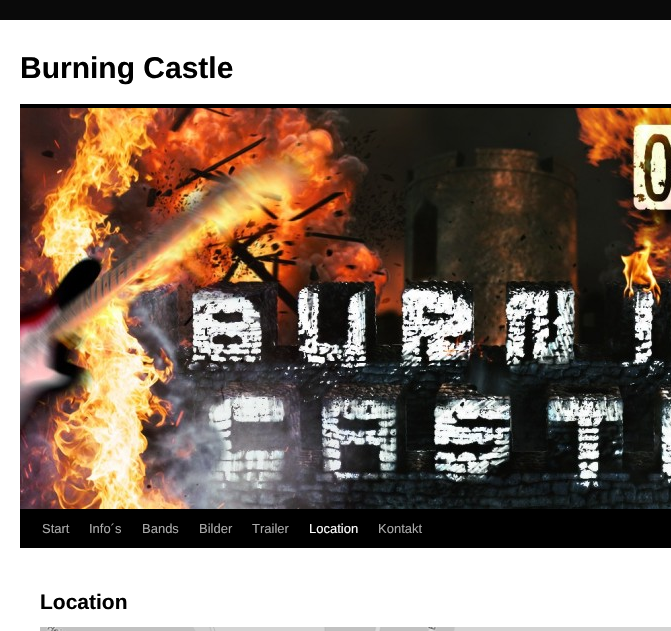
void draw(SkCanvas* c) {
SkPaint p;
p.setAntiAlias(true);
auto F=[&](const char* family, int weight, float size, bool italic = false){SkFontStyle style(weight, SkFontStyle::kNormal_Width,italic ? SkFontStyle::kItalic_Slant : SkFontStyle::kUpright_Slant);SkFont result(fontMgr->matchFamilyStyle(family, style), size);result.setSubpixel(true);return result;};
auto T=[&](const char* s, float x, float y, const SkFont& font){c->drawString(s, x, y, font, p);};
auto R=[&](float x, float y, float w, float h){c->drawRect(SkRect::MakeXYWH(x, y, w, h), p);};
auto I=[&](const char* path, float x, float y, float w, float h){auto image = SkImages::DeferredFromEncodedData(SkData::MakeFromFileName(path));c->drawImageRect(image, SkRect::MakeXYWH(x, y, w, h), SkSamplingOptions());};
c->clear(0xff0a0a0a);
p.setColor(0xffffffff);
R(0,20,671,611);
auto f1 = F("Liberation Sans",700,30);
p.setColor(0xff000000);
T("Burning Castle",20,78,f1);
R(20,104,651,4);
R(20,509,651,39);
I("1.png",20,108,651,401);
auto f2 = F("Liberation Sans",400,13);
p.setColor(0xffaaaaaa);
T("Start",42,533,f2);
T("Info´s",89,533,f2);
T("Bands",142,533,f2);
T("Bilder",199,533,f2);
T("Trailer",252,533,f2);
p.setColor(0xffffffff);
T("Location",309,533,f2);
p.setColor(0xffaaaaaa);
T("Kontakt",378,533,f2);
auto f3 = F("Liberation Sans",700,21);
p.setColor(0xff000000);
T("Location",40,609,f3);
I("2.png",40,627,631,4);
}
